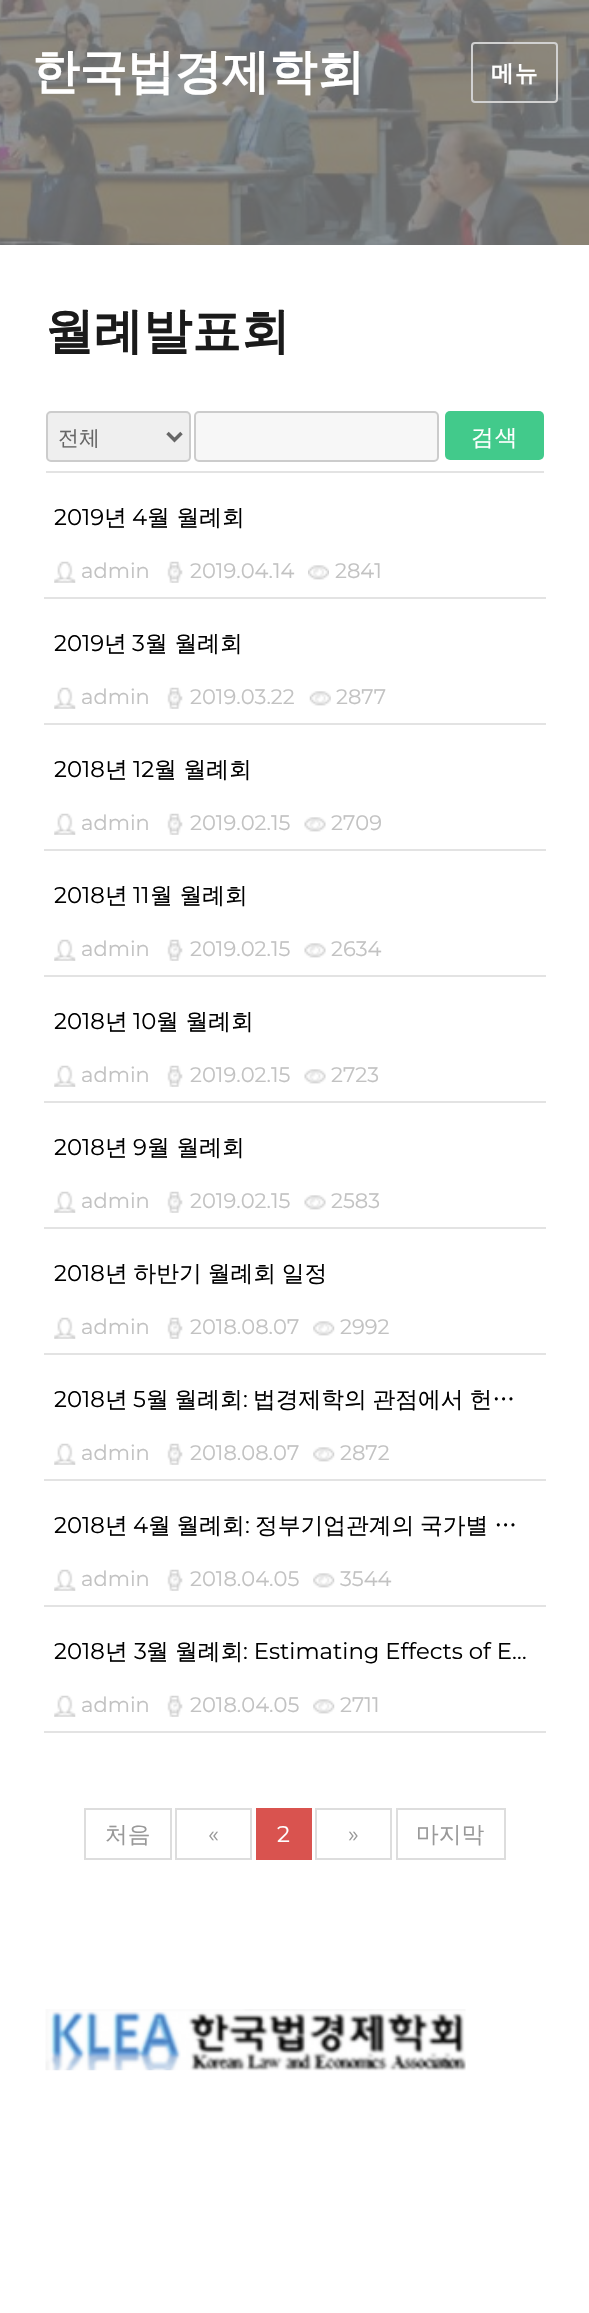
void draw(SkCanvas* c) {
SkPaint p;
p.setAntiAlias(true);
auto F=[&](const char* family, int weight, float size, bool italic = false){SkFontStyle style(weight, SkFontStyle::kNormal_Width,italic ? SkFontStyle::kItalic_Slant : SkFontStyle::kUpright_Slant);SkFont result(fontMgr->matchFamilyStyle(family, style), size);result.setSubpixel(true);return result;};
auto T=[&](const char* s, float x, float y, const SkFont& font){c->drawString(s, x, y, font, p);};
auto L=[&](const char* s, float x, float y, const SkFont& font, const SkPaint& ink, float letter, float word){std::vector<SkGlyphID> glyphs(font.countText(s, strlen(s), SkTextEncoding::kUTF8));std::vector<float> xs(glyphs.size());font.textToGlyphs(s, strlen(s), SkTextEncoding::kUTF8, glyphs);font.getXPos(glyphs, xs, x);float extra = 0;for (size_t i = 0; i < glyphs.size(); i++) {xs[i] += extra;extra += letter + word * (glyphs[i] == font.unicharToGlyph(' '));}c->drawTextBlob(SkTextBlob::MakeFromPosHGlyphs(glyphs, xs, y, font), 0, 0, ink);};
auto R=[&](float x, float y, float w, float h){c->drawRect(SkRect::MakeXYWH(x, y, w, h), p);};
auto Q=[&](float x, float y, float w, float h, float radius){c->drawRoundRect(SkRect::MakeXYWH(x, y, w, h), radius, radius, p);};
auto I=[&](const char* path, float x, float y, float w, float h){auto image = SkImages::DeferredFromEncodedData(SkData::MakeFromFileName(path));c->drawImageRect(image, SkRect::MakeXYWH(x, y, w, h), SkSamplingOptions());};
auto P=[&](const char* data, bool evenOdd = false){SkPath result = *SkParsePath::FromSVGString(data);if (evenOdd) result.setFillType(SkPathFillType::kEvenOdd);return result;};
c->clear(0xffffffff);
I("1.png",0,0,589,245);
auto f1 = F("WenQuanYi Zen Hei",700,47.5);
p.setColor(0xffffffff);
T("한국법경제학회",32,88,f1);
p.setStroke(true);
p.setStrokeWidth(2);
p.setColor(0xffd1d1d1);
c->drawRoundRect(SkRect::MakeXYWH(472,43,85,59),3,3,p);
auto f2 = F("WenQuanYi Zen Hei",700,22.75);
p.setStroke(false);
p.setColor(0xffffffff);
L("메뉴",491,81,f2,p,1,0);
auto f3 = F("WenQuanYi Zen Hei",700,49);
p.setColor(0xff1a1a1a);
T("월례발표회",45,348,f3);
p.setColor(0xffefefef);
c->drawRoundRect(SkRect::MakeXYWH(47,412,143,49),4,4,p);
p.setStroke(true);
p.setColor(0xffcccccc);
c->drawRoundRect(SkRect::MakeXYWH(47,412,143,49),4,4,p);
p.setStrokeWidth(3.5);
p.setColor(0xff666666);
c->drawPath(P("M167.5 433l7 7l7-7"),p);
auto f4 = F("WenQuanYi Zen Hei",500,21);
p.setStroke(false);
T("전체",58,445,f4);
p.setColor(0xfff7f7f7);
c->drawRoundRect(SkRect::MakeXYWH(195,412,243,49),4,4,p);
p.setStroke(true);
p.setStrokeWidth(2);
p.setColor(0xffcccccc);
c->drawRoundRect(SkRect::MakeXYWH(195,412,243,49),4,4,p);
p.setStroke(false);
p.setColor(0xff42ca8b);
Q(445,411,99,49,5);
auto f5 = F("WenQuanYi Zen Hei",500,22.75);
p.setColor(0xffffffff);
L("검색",471,445,f5,p,1,0);
p.setColor(0xffe3e3e3);
R(46,471,498,2);
R(44,597,502,2);
auto f6 = F("Montserrat",400,22.75);
p.setColor(0xff000000);
T("2019",54,525,f6);
T("년",104,525,f5);
T("4",132,525,f6);
T("월 월례회",147,525,f5);
I("2.png",54,561,22,22);
auto f7 = F("Montserrat",400,21);
p.setColor(0xffc2c2c2);
T("admin",81,578,f7);
I("3.png",167,561,16,22);
T("2019.04.14",190,578,f7);
I("4.png",308,565,21,15);
T("2841",335,578,f7);
p.setColor(0xffe3e3e3);
R(44,723,502,2);
p.setColor(0xff000000);
T("2019",54,651,f6);
T("년",104,651,f5);
T("3",132,651,f6);
T("월 월례회",145,651,f5);
I("2.png",54,687,22,22);
p.setColor(0xffc2c2c2);
T("admin",81,704,f7);
I("3.png",167,687,16,22);
T("2019.03.22",190,704,f7);
I("5.png",309,691,22,15);
T("2877",336,704,f7);
p.setColor(0xffe3e3e3);
R(44,849,502,2);
p.setColor(0xff000000);
T("2018",54,777,f6);
T("년",105,777,f5);
T("12",133,777,f6);
T("월 월례회",154,777,f5);
I("2.png",54,813,22,22);
p.setColor(0xffc2c2c2);
T("admin",81,830,f7);
I("3.png",167,813,16,22);
T("2019.02.15",190,830,f7);
I("6.png",304,817,22,15);
T("2709",331,830,f7);
p.setColor(0xffe3e3e3);
R(44,975,502,2);
p.setColor(0xff000000);
T("2018",54,903,f6);
T("년",105,903,f5);
T("11",133,903,f6);
T("월 월례회",150,903,f5);
I("2.png",54,939,22,22);
p.setColor(0xffc2c2c2);
T("admin",81,956,f7);
I("3.png",167,939,16,22);
T("2019.02.15",190,956,f7);
I("6.png",304,943,22,15);
T("2634",331,956,f7);
p.setColor(0xffe3e3e3);
R(44,1101,502,2);
p.setColor(0xff000000);
T("2018",54,1029,f6);
T("년",105,1029,f5);
T("10",133,1029,f6);
T("월 월례회",156,1029,f5);
I("2.png",54,1065,22,22);
p.setColor(0xffc2c2c2);
T("admin",81,1082,f7);
I("3.png",167,1065,16,22);
T("2019.02.15",190,1082,f7);
I("6.png",304,1069,22,15);
T("2723",331,1082,f7);
p.setColor(0xffe3e3e3);
R(44,1227,502,2);
p.setColor(0xff000000);
T("2018",54,1155,f6);
T("년",105,1155,f5);
T("9",133,1155,f6);
T("월 월례회",147,1155,f5);
I("2.png",54,1191,22,22);
p.setColor(0xffc2c2c2);
T("admin",81,1208,f7);
I("3.png",167,1191,16,22);
T("2019.02.15",190,1208,f7);
I("6.png",304,1195,22,15);
T("2583",331,1208,f7);
p.setColor(0xffe3e3e3);
R(44,1353,502,2);
p.setColor(0xff000000);
T("2018",54,1281,f6);
L("년 하반기 월례회 일정",105,1281,f5,p,0,-1);
I("2.png",54,1317,22,22);
p.setColor(0xffc2c2c2);
T("admin",81,1334,f7);
I("3.png",167,1317,16,22);
T("2018.08.07",190,1334,f7);
I("7.png",313,1321,22,15);
T("2992",340,1334,f7);
p.setColor(0xffe3e3e3);
R(44,1479,502,2);
p.setColor(0xff000000);
T("2018",54,1407,f6);
T("년",105,1407,f5);
T("5",133,1407,f6);
L("월 월례회",146,1407,f5,p,0,-1);
T(":",243,1407,f6);
L("법경제학의 관점에서 헌…",253,1407,f5,p,0,-1);
I("2.png",54,1443,22,22);
p.setColor(0xffc2c2c2);
T("admin",81,1460,f7);
I("3.png",167,1443,16,22);
T("2018.08.07",190,1460,f7);
I("7.png",313,1447,22,15);
T("2872",340,1460,f7);
p.setColor(0xffe3e3e3);
R(44,1605,502,2);
p.setColor(0xff000000);
T("2018",54,1533,f6);
T("년",105,1533,f5);
T("4",133,1533,f6);
L("월 월례회",148,1533,f5,p,0,-1);
T(":",245,1533,f6);
L("정부기업관계의 국가별 …",255,1533,f5,p,0,-1);
I("2.png",54,1569,22,22);
p.setColor(0xffc2c2c2);
T("admin",81,1586,f7);
I("3.png",167,1569,16,22);
T("2018.04.05",190,1586,f7);
I("7.png",313,1573,22,15);
T("3544",340,1586,f7);
p.setColor(0xffe3e3e3);
R(44,1731,502,2);
p.setColor(0xff000000);
T("2018",54,1659,f6);
T("년",105,1659,f5);
T("3",134,1659,f6);
T("월",146,1659,f5);
T("월례회",175,1659,f5);
T(": Estimating Effects of E…",243,1659,f6);
I("2.png",54,1695,22,22);
p.setColor(0xffc2c2c2);
T("admin",81,1712,f7);
I("3.png",167,1695,16,22);
T("2018.04.05",190,1712,f7);
I("7.png",313,1699,22,15);
T("2711",340,1712,f7);
p.setStroke(true);
p.setColor(0xffdddddd);
c->drawRect(SkRect::MakeXYWH(85,1809,86,50),p);
p.setStroke(false);
p.setColor(0xff999999);
T("처음",105,1842,f5);
p.setStroke(true);
p.setColor(0xffdddddd);
c->drawRect(SkRect::MakeXYWH(176,1809,75,50),p);
p.setStroke(false);
p.setColor(0xff999999);
T("«",208,1842,f6);
p.setColor(0xffd9534f);
R(256,1808,56,52);
p.setColor(0xffffffff);
T("2",277,1842,f6);
p.setStroke(true);
p.setColor(0xffdddddd);
c->drawRect(SkRect::MakeXYWH(316,1809,75,50),p);
p.setStroke(false);
p.setColor(0xff999999);
T("»",348,1842,f6);
p.setStroke(true);
p.setColor(0xffdddddd);
c->drawRect(SkRect::MakeXYWH(397,1809,108,50),p);
p.setStroke(false);
p.setColor(0xff999999);
T("마지막",416,1842,f5);
I("8.png",45,2009,421,62);
}
